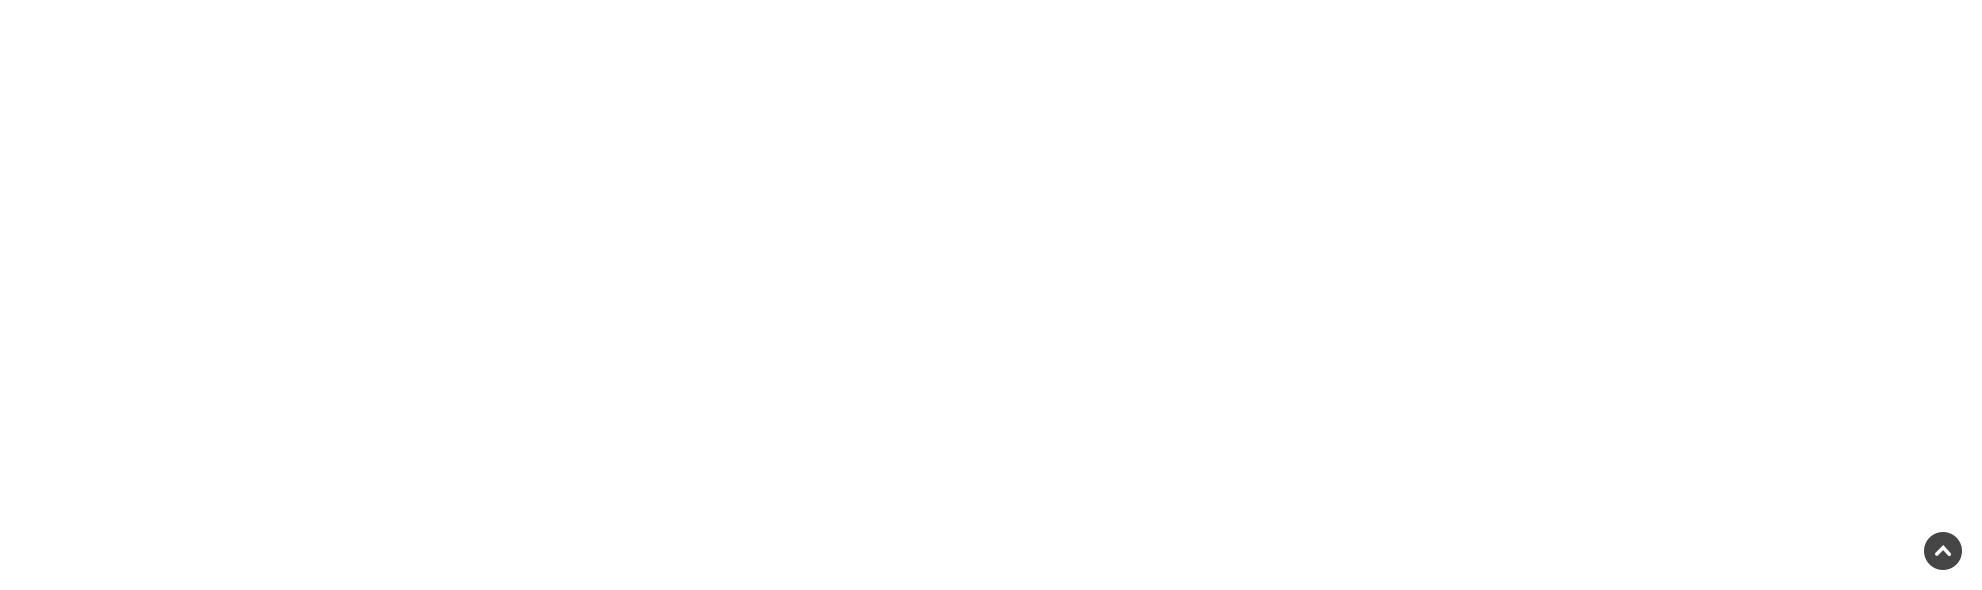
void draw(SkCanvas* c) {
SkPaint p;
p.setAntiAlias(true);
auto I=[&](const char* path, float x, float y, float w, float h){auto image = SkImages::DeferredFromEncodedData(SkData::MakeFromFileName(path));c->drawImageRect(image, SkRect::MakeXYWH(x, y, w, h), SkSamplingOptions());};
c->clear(0xffffffff);
I("1.png",1924,532,38,38);
}
